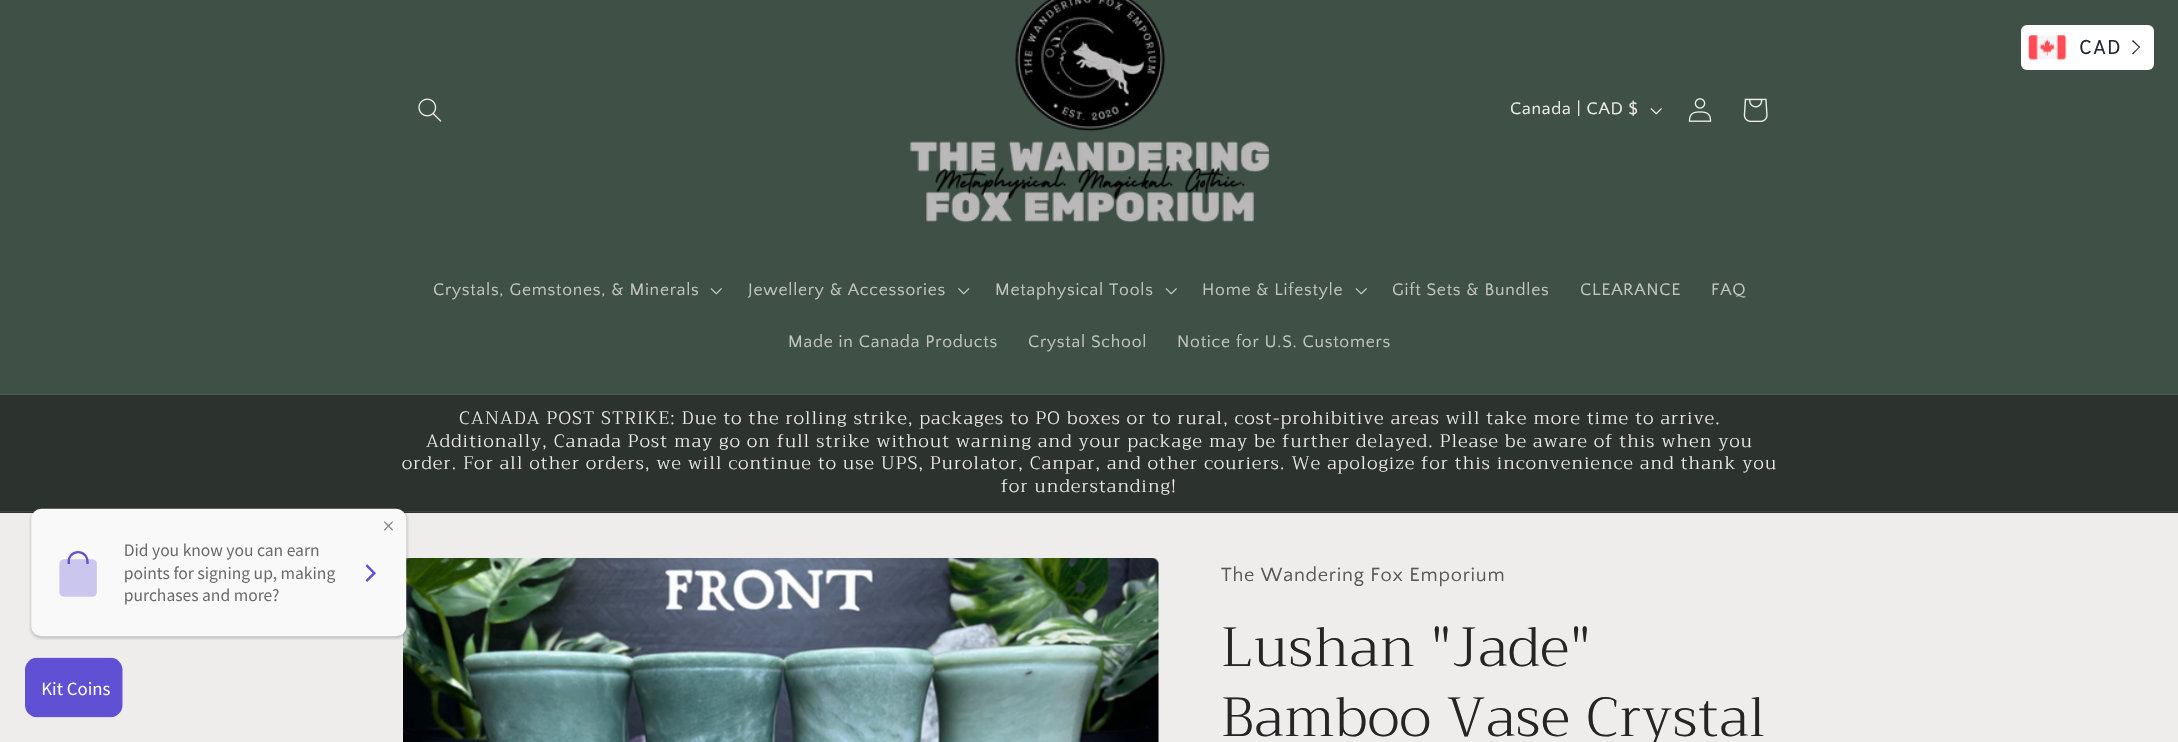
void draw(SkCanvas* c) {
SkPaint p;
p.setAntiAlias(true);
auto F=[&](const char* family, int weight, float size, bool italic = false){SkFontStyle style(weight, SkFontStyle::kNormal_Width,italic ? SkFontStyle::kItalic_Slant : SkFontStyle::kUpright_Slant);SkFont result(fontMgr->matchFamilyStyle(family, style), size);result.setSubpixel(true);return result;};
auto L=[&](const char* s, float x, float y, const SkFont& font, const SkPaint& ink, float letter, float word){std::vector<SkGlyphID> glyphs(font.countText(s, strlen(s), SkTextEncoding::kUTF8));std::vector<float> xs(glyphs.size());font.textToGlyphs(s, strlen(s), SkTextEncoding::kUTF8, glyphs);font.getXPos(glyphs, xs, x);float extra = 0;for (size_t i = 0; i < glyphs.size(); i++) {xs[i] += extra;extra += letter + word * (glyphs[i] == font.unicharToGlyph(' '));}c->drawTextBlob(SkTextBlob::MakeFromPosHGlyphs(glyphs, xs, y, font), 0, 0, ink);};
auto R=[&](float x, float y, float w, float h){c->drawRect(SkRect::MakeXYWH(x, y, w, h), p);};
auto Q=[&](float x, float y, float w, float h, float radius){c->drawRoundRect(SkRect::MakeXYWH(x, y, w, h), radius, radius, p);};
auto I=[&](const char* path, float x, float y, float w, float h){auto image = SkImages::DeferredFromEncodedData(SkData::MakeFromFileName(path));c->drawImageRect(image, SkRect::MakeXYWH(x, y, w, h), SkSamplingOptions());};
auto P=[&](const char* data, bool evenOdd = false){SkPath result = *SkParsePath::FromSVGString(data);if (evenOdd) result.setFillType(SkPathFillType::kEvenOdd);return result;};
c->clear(0xffefecec);
p.setColor(0xff3f5147);
R(0,0,2178,394);
p.setColor(0xffffffff);
Q(2021,25,133,45,6);
I("1.png",2028,35,39,25);
auto f1 = F("Overpass",400,20);
p.setColor(0xff212b36);
L("CAD",2079,54,f1,p,.75,0);
c->drawPath(P("M2132 41l1-1l7 7l-.5 1z"),p);
c->drawPath(P("M2132 53.5l7.5-7l.5 .5l-7 7.5z"),p);
p.setColor(0xff4d5d54);
R(0,394,2178,1);
I("2.png",418,98,24,24);
I("3.png",909,0,361,223);
auto f2 = F("Quattrocento Sans",400,17.5);
p.setColor(0xffefecec);
L("Canada | CAD $",1510,114,f2,p,.75,0);
I("4.png",1650,108,12,7);
I("5.png",1688,98,24,24);
I("6.png",1743,98,25,24);
p.setColor(0xffc3c5c3);
L("Crystals, Gemstones, & Minerals",433,295,f2,p,.75,0);
I("7.png",710,288,12,7);
L("Jewellery & Accessories",748,295,f2,p,.75,0);
I("8.png",958,288,12,7);
L("Metaphysical Tools",995,295,f2,p,.75,0);
I("7.png",1165,288,12,7);
L("Home & Lifestyle",1202,295,f2,p,.75,0);
I("7.png",1355,288,12,7);
L("Gift Sets & Bundles",1392,295,f2,p,.75,0);
L("CLEARANCE",1580,295,f2,p,.75,0);
L("FAQ",1711,295,f2,p,.75,0);
L("Made in Canada Products",788,347,f2,p,.75,0);
L("Crystal School",1028,347,f2,p,.75,0);
L("Notice for U.S. Customers",1177,347,f2,p,.75,0);
p.setColor(0xff2c332f);
R(0,395,2178,118);
p.setColor(0xff3c423e);
R(0,511,2178,1);
auto f3 = F("Trirong",300,17.88);
p.setColor(0xffefecec);
L("CANADA POST STRIKE: Due to the rolling strike, packages to PO boxes or to rural, cost-prohibitive areas will take more time to arrive.",459,424,f3,p,1.25,0);
L("Additionally, Canada Post may go on full strike without warning and your package may be further delayed. Please be aware of this when you",426,447,f3,p,1.25,0);
L("order. For all other orders, we will continue to use UPS, Purolator, Canpar, and other couriers. We apologize for this inconvenience and thank you",402,469,f3,p,1.25,0);
L("for understanding!",1001,492,f3,p,1.25,0);
I("10.png",403,558,756,184);
I("9.png",29,508,380,132);
auto f4 = F("Quattrocento Sans",400,20);
p.setColor(0xff585757);
L("The Wandering Fox Emporium",1221,581,f4,p,.75,0);
auto f5 = F("Trirong",300,55);
p.setColor(0xff252525);
L("Lushan \"Jade\"",1221,666,f5,p,.8,0);
L("Bamboo Vase Crystal",1221,736,f5,p,.8,0);
I("11.png",25,657,98,61);
}
